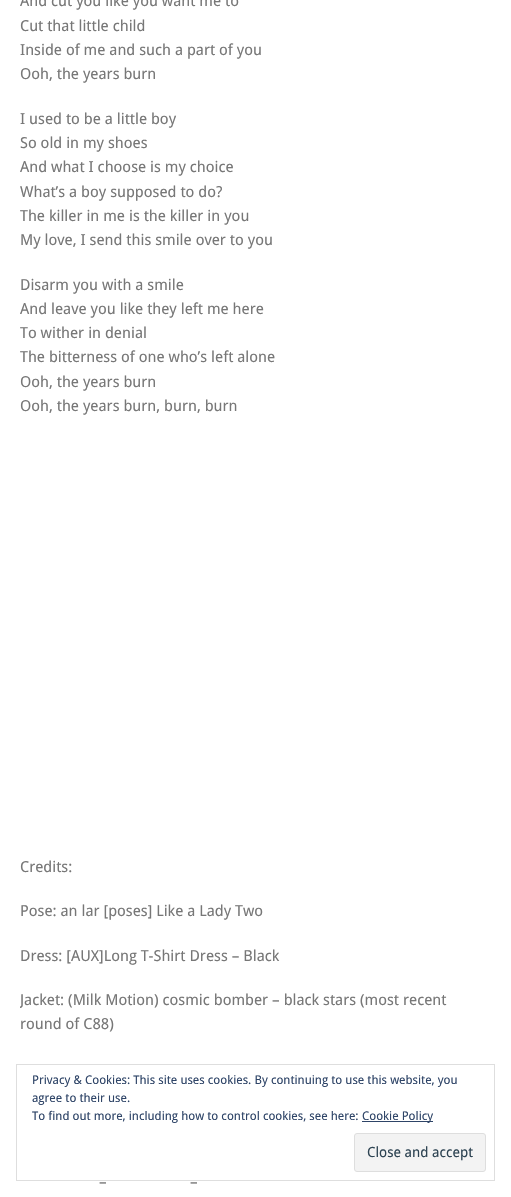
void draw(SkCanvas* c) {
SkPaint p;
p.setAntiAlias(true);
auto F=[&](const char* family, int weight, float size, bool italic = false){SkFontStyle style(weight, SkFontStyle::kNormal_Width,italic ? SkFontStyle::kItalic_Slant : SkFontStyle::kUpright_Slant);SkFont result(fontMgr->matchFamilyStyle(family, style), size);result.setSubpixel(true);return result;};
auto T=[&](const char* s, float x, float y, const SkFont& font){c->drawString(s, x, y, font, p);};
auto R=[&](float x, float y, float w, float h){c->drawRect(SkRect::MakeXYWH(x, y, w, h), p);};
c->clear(0xffffffff);
auto f1 = F("Droid Sans",400,15.2);
p.setColor(0xff777777);
T("And cut you like you want me to",20,6,f1);
T("Cut that little child",20,31,f1);
T("Inside of me and such a part of you",20,55,f1);
T("Ooh, the years burn",20,79,f1);
T("I used to be a little boy",20,124,f1);
T("So old in my shoes",20,148,f1);
T("And what I choose is my choice",20,172,f1);
T("What’s a boy supposed to do?",20,197,f1);
T("The killer in me is the killer in you",20,221,f1);
T("My love, I send this smile over to you",20,245,f1);
T("Disarm you with a smile",20,290,f1);
T("And leave you like they left me here",20,314,f1);
T("To wither in denial",20,338,f1);
T("The bitterness of one who’s left alone",20,362,f1);
T("Ooh, the years burn",20,387,f1);
T("Ooh, the years burn, burn, burn",20,411,f1);
T("Credits:",20,872,f1);
T("Pose: an lar [poses] Like a Lady Two",20,916,f1);
T("Dress: [AUX]Long T-Shirt Dress – Black",20,961,f1);
c->save();
c->clipRect(SkRect::MakeXYWH(20,0,459,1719));
T("Jacket: (Milk Motion) cosmic bomber – black stars (most recent",20,1005,f1);
c->restore();
T("round of C88)",20,1029,f1);
T("–",99,1187,f1);
T("–",190,1187,f1);
p.setStroke(true);
p.setStrokeWidth(1);
p.setColor(0xffdedede);
c->drawRect(SkRect::MakeXYWH(16.5,1064.5,478,116),p);
auto f2 = F("Droid Sans",400,12);
p.setStroke(false);
p.setColor(0xff2e4467);
T("Privacy & Cookies: This site uses cookies. By continuing to use this website, you",32,1084,f2);
T("agree to their use.",32,1102,f2);
T("To find out more, including how to control cookies, see here:",32,1120,f2);
R(362,1121,71,1);
T("Cookie Policy",362,1120,f2);
p.setColor(0xfff3f3f3);
c->drawRoundRect(SkRect::MakeXYWH(354.5,1133.5,131,38),2.5,2.5,p);
p.setStroke(true);
p.setColor(0xffdedede);
c->drawRoundRect(SkRect::MakeXYWH(354.5,1133.5,131,38),2.5,2.5,p);
auto f3 = F("Droid Sans",400,14);
p.setStroke(false);
p.setColor(0xff2e4453);
T("Close and accept",367,1157,f3);
}
